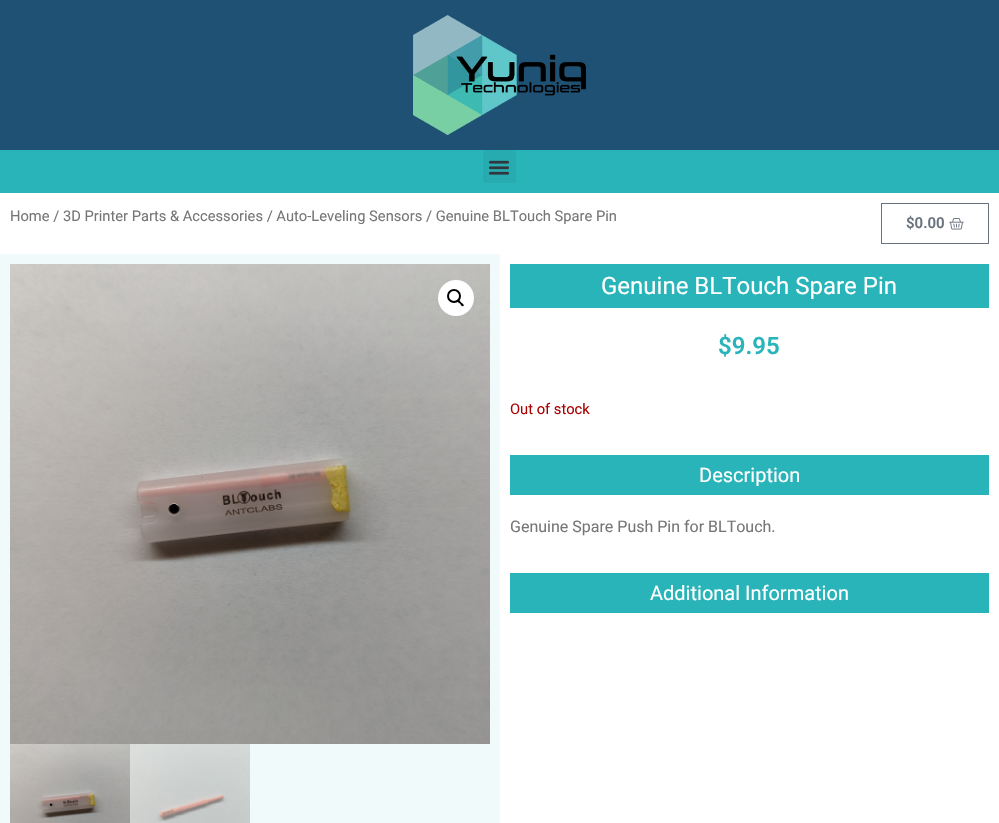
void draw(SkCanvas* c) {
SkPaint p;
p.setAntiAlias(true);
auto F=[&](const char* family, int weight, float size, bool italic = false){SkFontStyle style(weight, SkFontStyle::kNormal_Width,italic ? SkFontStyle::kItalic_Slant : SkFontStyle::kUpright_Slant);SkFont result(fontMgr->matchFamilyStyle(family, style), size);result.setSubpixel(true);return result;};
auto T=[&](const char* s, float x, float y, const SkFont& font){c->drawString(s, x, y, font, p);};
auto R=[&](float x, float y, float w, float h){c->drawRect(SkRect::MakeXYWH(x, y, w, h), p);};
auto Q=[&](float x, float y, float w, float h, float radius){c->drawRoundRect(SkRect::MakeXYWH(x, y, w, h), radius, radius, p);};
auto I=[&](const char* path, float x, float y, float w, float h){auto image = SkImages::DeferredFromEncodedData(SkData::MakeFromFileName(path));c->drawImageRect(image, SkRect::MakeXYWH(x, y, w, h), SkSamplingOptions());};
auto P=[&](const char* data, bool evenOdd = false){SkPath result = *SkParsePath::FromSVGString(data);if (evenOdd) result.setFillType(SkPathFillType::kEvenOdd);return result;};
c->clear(0xffffffff);
p.setColor(0xff1e5173);
R(0,0,999,150);
I("1.png",413,15,173,120);
p.setColor(0xff29b4b9);
R(0,150,999,43);
p.setColor(0xff27abb0);
Q(483,150,33,33,3);
I("2.png",489,160,20,15);
auto f1 = F("Roboto",400,14.7);
p.setColor(0xff767676);
T("Home / 3D Printer Parts & Accessories / Auto-Leveling Sensors / Genuine BLTouch Spare Pin",10,221,f1);
p.setStroke(true);
p.setStrokeWidth(1);
p.setColor(0xff69727d);
c->drawRect(SkRect::MakeXYWH(881.5,203.5,107,40),p);
auto f2 = F("Roboto",600,15);
p.setStroke(false);
T("$0.00",906,228,f2);
I("3.png",949,218,15,12);
p.setColor(0xfff1fafb);
R(0,254,500,569);
I("4.png",10,264,480,480);
p.setColor(0xffffffff);
c->drawCircle(456,298,18,p);
p.setStroke(true);
p.setStrokeWidth(2);
p.setColor(0xff000000);
c->drawCircle(454,296,6,p);
p.setStroke(false);
c->drawPath(P("M457.5 300c1.5-1 3 1.5 3.5 2.5c1 .5 3.5 2 2.5 3.5c-1.5 1-3-1.5-3.5-2.5c-1-.5-3.5-2-2.5-3.5z"),p);
I("5.png",10,744,120,79);
I("6.png",130,744,120,79);
p.setColor(0xff29b4b9);
R(510,264,479,44);
auto f3 = F("Roboto",400,24);
p.setColor(0xffffffff);
T("Genuine BLTouch Spare Pin",601,294,f3);
auto f4 = F("Roboto",600,24);
p.setColor(0xff29b4b9);
T("$9.95",718,354,f4);
p.setColor(0xffaa0000);
T("Out of stock",510,414,f1);
p.setColor(0xff29b4b9);
R(510,455,479,40);
auto f5 = F("Roboto",400,20);
p.setColor(0xffffffff);
T("Description",699,482,f5);
auto f6 = F("Roboto",400,16);
p.setColor(0xff767676);
T("Genuine Spare Push Pin for BLTouch.",510,532,f6);
p.setColor(0xff29b4b9);
R(510,573,479,40);
p.setColor(0xffffffff);
T("Additional Information",650,600,f5);
}
